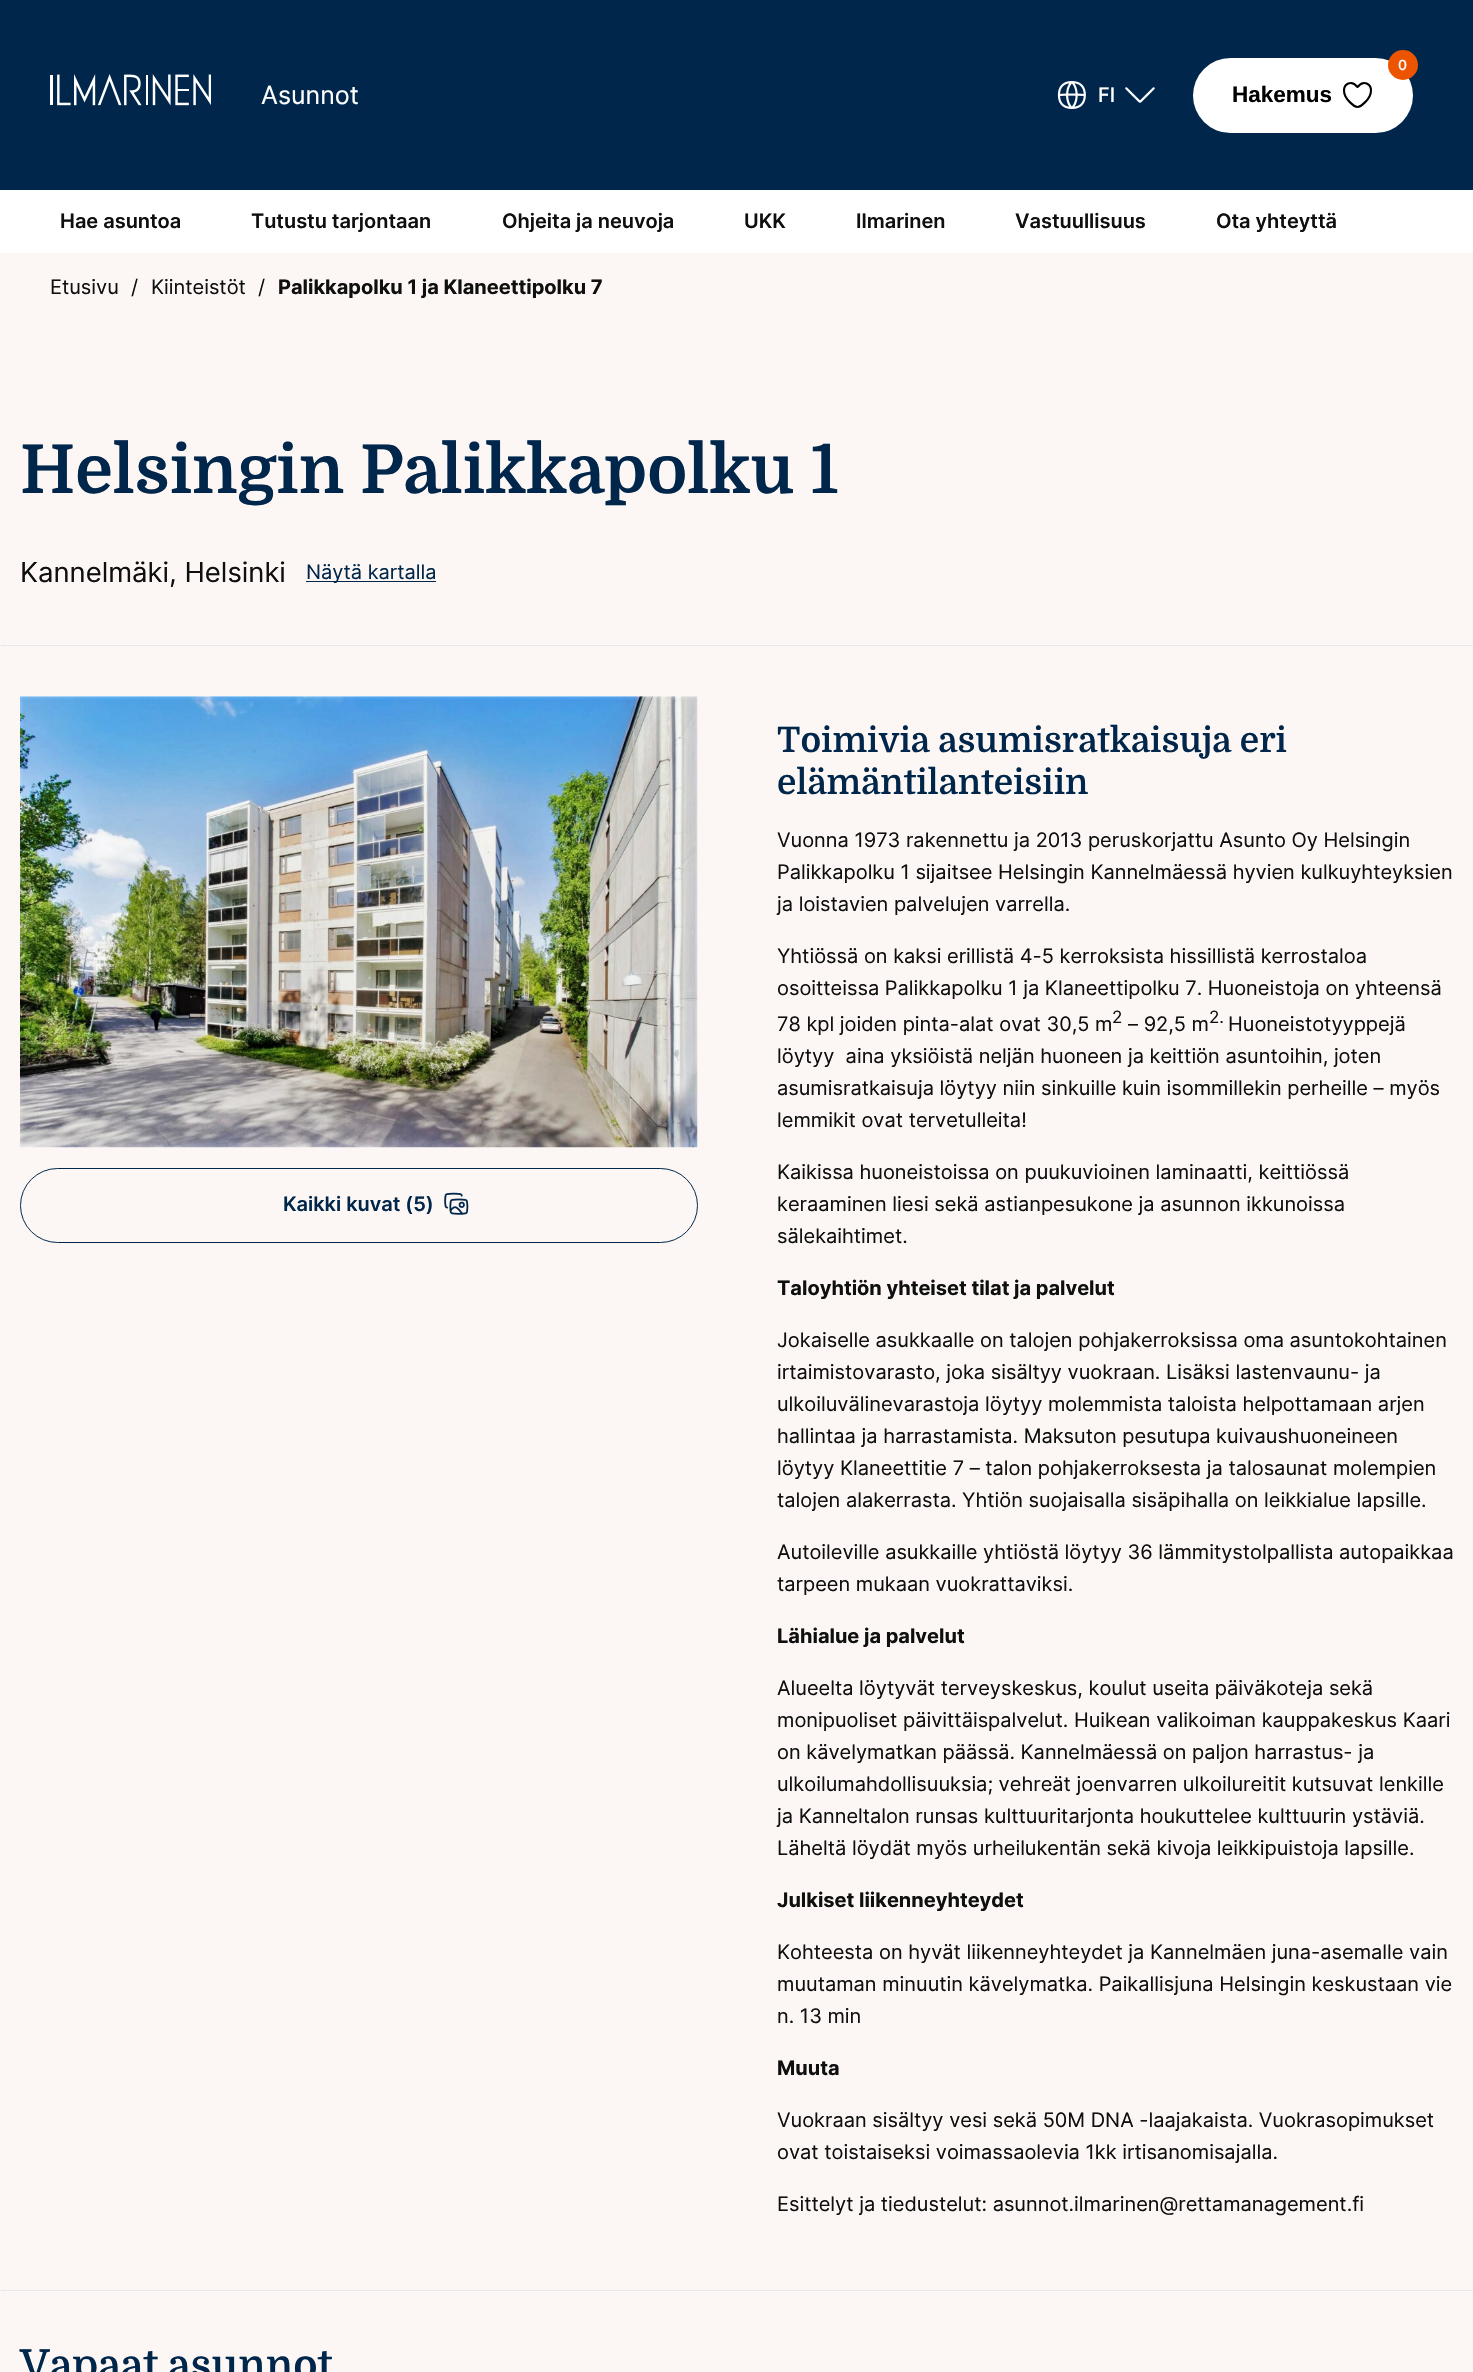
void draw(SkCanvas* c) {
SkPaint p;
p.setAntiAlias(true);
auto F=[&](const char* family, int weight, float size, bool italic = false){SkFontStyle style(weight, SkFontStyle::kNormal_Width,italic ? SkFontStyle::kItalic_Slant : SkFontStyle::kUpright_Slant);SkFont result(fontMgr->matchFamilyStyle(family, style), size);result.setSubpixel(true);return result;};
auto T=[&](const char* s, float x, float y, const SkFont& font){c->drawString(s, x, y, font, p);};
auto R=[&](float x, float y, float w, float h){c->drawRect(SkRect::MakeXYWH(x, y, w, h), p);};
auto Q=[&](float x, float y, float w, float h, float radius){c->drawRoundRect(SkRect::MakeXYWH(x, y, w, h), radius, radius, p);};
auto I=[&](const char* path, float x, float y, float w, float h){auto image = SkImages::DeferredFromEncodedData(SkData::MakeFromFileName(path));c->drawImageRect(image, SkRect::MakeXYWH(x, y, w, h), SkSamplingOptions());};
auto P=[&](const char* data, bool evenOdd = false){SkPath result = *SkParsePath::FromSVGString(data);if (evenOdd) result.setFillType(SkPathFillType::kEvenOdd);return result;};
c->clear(0xfffcf7f4);
p.setColor(0xff00274b);
R(0,0,1473,190);
I("1.png",50,74,161,32);
auto f1 = F("Inter",400,25);
p.setColor(0xffffffff);
T("Asunnot",261,104,f1);
I("2.png",1057,81,29,28);
auto f2 = F("Inter",500,20);
T("FI",1098,102,f2);
I("3.png",1125,87,30,16);
Q(1193,58,220,75,37.5);
p.setColor(0xffed5400);
c->drawCircle(1403,65,15,p);
auto f3 = F("Inter",500,14);
p.setColor(0xffffffff);
T("0",1398,70,f3);
auto f4 = F("Liberation Sans",700,22.5);
p.setColor(0xff000000);
T("Hakemus",1232,102,f4);
p.setStroke(true);
p.setStrokeWidth(2.1);
p.setStrokeCap(SkPaint::kRound_Cap);
p.setStrokeJoin(SkPaint::kRound_Join);
c->drawPath(P("M1357.5 87c-6.5-8-13.5-2.5-13.5 3.5c0 9 11 16.5 13.5 16.5c2.5 0 13.5-7.5 13.5-16.5c0-6-7-11.5-13.5-3.5z"),p);
p.setStroke(false);
p.setColor(0xffffffff);
R(0,190,1473,63);
auto f5 = F("Inter",600,20);
p.setColor(0xff0f0f0f);
T("Hae asuntoa",60,228,f5);
T("Tutustu tarjontaan",251,228,f5);
T("Ohjeita ja neuvoja",502,228,f5);
T("UKK",744,228,f5);
T("Ilmarinen",856,228,f5);
T("Vastuullisuus",1015,228,f5);
T("Ota yhteyttä",1216,228,f5);
auto f6 = F("Inter",400,20);
T("Etusivu",50,294,f6);
T("/",131,294,f6);
T("Kiinteistöt",151,294,f6);
T("/",258,294,f6);
auto f7 = F("Inter",700,20);
T("Palikkapolku 1 ja Klaneettipolku 7",278,294,f7);
auto f8 = F("Domine",700,67.5);
p.setColor(0xff00274b);
T("Helsingin Palikkapolku 1",20,493,f8);
auto f9 = F("Inter",400,27.5);
p.setColor(0xff0f0f0f);
T("Kannelmäki, Helsinki",20,582,f9);
p.setColor(0xff00274b);
R(306,581,130,1);
T("Näytä kartalla",306,579,f6);
p.setColor(0xffe5e9ed);
R(1,645,1472,1);
I("4.png",20,696,678,452);
p.setStroke(true);
p.setStrokeWidth(1);
p.setStrokeCap(SkPaint::kButt_Cap);
p.setStrokeJoin(SkPaint::kMiter_Join);
p.setColor(0xff00274b);
c->drawRoundRect(SkRect::MakeXYWH(20.5,1168.5,677,74),37,37,p);
p.setStroke(false);
T("Kaikki kuvat (5)",283,1211,f5);
I("5.png",444,1192,25,23);
auto f10 = F("Domine",600,35);
T("Toimivia asumisratkaisuja eri",777,752,f10);
T("elämäntilanteisiin",777,794,f10);
p.setColor(0xff0f0f0f);
T("Vuonna 1973 rakennettu ja 2013 peruskorjattu Asunto Oy Helsingin",777,847,f6);
T("Palikkapolku 1 sijaitsee Helsingin Kannelmäessä hyvien kulkuyhteyksien",777,879,f6);
T("ja loistavien palvelujen varrella.",777,911,f6);
T("Yhtiössä on kaksi erillistä 4-5 kerroksista hissillistä kerrostaloa",777,963,f6);
T("osoitteissa Palikkapolku 1 ja Klaneettipolku 7. Huoneistoja on yhteensä",777,995,f6);
T("78 kpl joiden pinta-alat ovat 30,5 m",777,1031,f6);
auto f11 = F("Inter",400,17);
T("2",1112,1023,f11);
T("– 92,5 m",1128,1031,f6);
T("2.",1209,1023,f11);
T("Huoneistotyyppejä",1228,1031,f6);
T("löytyy  aina yksiöistä neljän huoneen ja keittiön asuntoihin, joten",777,1063,f6);
T("asumisratkaisuja löytyy niin sinkuille kuin isommillekin perheille – myös",777,1095,f6);
T("lemmikit ovat tervetulleita!",777,1127,f6);
T("Kaikissa huoneistoissa on puukuvioinen laminaatti, keittiössä",777,1179,f6);
T("keraaminen liesi sekä astianpesukone ja asunnon ikkunoissa",777,1211,f6);
T("sälekaihtimet.",777,1243,f6);
T("Taloyhtiön yhteiset tilat ja palvelut",777,1295,f7);
T("Jokaiselle asukkaalle on talojen pohjakerroksissa oma asuntokohtainen",777,1347,f6);
T("irtaimistovarasto, joka sisältyy vuokraan. Lisäksi lastenvaunu- ja",777,1379,f6);
T("ulkoiluvälinevarastoja löytyy molemmista taloista helpottamaan arjen",777,1411,f6);
T("hallintaa ja harrastamista. Maksuton pesutupa kuivaushuoneineen",777,1443,f6);
T("löytyy Klaneettitie 7 – talon pohjakerroksesta ja talosaunat molempien",777,1475,f6);
T("talojen alakerrasta. Yhtiön suojaisalla sisäpihalla on leikkialue lapsille.",777,1507,f6);
T("Autoileville asukkaille yhtiöstä löytyy 36 lämmitystolpallista autopaikkaa",777,1559,f6);
T("tarpeen mukaan vuokrattaviksi.",777,1591,f6);
T("Lähialue ja palvelut",777,1643,f7);
T("Alueelta löytyvät terveyskeskus, koulut useita päiväkoteja sekä",777,1695,f6);
T("monipuoliset päivittäispalvelut. Huikean valikoiman kauppakeskus Kaari",777,1727,f6);
T("on kävelymatkan päässä. Kannelmäessä on paljon harrastus- ja",777,1759,f6);
T("ulkoilumahdollisuuksia; vehreät joenvarren ulkoilureitit kutsuvat lenkille",777,1791,f6);
T("ja Kanneltalon runsas kulttuuritarjonta houkuttelee kulttuurin ystäviä.",777,1823,f6);
T("Läheltä löydät myös urheilukentän sekä kivoja leikkipuistoja lapsille.",777,1855,f6);
T("Julkiset liikenneyhteydet",777,1907,f7);
T("Kohteesta on hyvät liikenneyhteydet ja Kannelmäen juna-asemalle vain",777,1959,f6);
T("muutaman minuutin kävelymatka. Paikallisjuna Helsingin keskustaan vie",777,1991,f6);
T("n. 13 min",777,2023,f6);
T("Muuta",777,2075,f7);
T("Vuokraan sisältyy vesi sekä 50M DNA -laajakaista. Vuokrasopimukset",777,2127,f6);
T("ovat toistaiseksi voimassaolevia 1kk irtisanomisajalla.",777,2159,f6);
T("Esittelyt ja tiedustelut: asunnot.ilmarinen@rettamanagement.fi",777,2211,f6);
p.setColor(0xffe5e9ed);
R(1,2290,1472,1);
auto f12 = F("Domine",600,41.25);
p.setColor(0xff00274b);
T("Vapaat asunnot",20,2379,f12);
}
